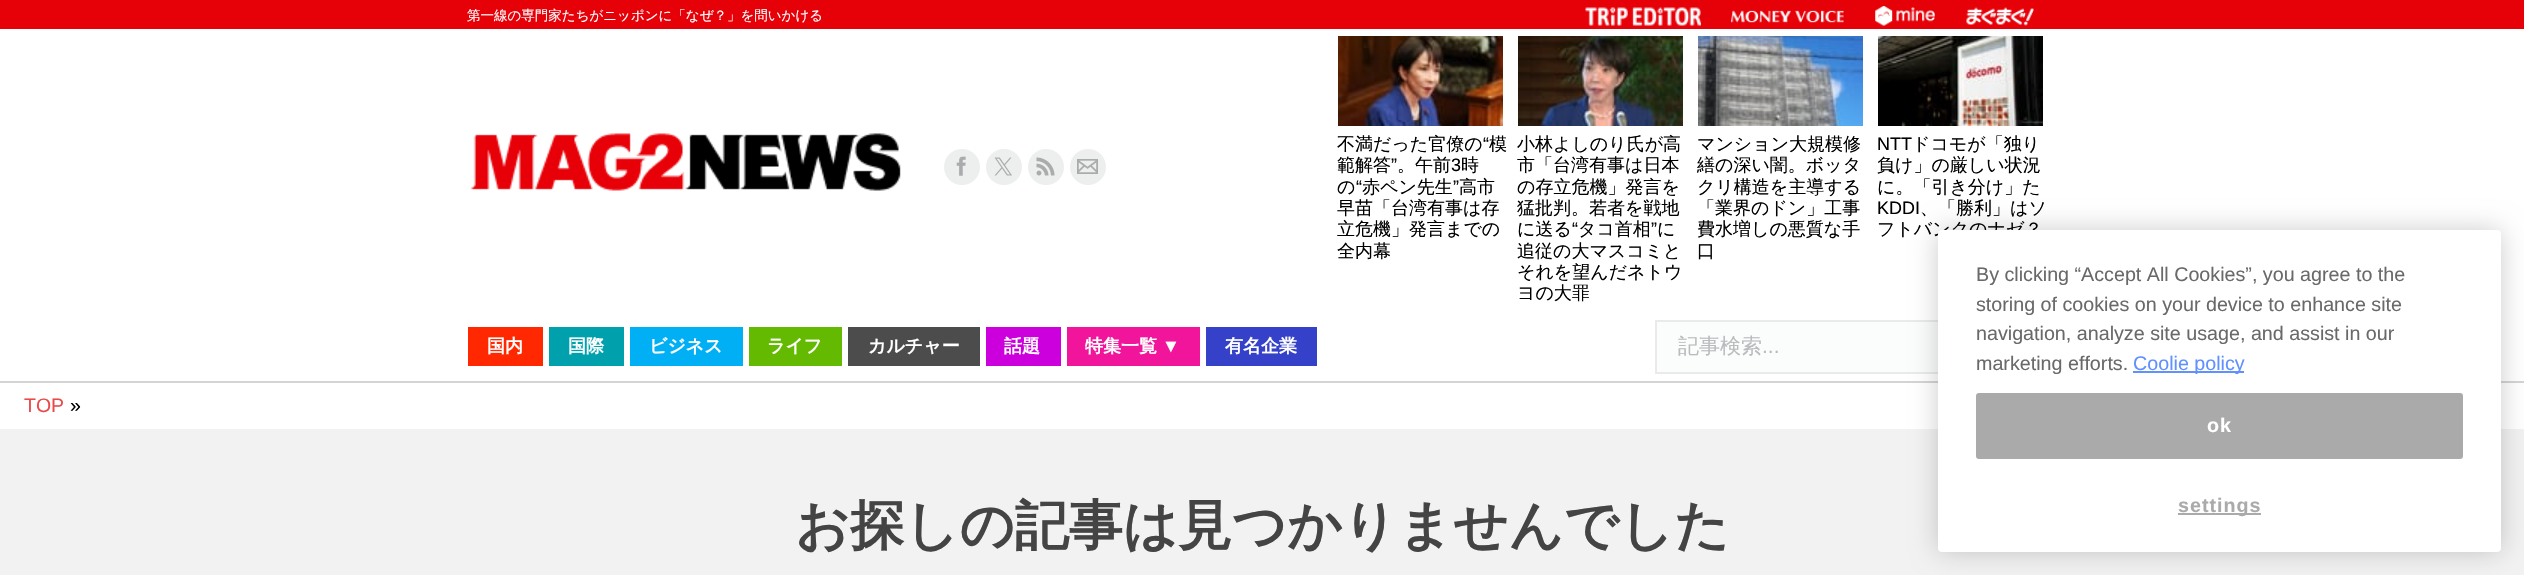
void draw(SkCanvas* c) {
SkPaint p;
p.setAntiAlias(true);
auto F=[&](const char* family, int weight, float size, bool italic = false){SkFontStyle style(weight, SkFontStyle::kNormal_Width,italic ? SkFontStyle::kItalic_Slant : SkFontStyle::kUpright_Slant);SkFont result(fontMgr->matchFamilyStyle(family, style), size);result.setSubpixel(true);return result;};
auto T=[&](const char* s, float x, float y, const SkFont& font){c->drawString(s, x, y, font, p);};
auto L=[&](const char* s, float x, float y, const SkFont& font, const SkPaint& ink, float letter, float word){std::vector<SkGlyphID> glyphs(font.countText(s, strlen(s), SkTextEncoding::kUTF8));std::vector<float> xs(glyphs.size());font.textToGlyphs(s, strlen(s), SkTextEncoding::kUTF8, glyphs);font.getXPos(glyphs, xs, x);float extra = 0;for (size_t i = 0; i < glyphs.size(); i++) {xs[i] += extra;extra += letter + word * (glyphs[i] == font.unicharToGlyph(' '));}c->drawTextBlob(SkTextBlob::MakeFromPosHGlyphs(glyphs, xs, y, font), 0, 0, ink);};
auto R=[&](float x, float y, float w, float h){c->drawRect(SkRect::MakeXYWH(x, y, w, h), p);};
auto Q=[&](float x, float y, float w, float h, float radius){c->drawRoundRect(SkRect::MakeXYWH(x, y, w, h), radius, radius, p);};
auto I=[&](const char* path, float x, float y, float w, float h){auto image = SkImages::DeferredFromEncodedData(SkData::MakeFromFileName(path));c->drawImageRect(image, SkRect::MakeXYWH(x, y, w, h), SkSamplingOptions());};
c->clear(0xfff2f2f2);
p.setColor(0xffffffff);
R(0,29,2524,352);
p.setColor(0xffd4d4d4);
R(0,381,2524,2);
p.setColor(0xffe60008);
R(0,0,2524,29);
auto f1 = F("WenQuanYi Zen Hei",500,13.5);
p.setColor(0xffffffff);
T("第一線の専門家たちがニッポンに「なぜ？」を問いかける",467,20,f1);
I("1.png",1585,7,116,19);
I("2.png",1731,10,113,13);
I("3.png",1875,6,60,20);
I("4.png",1966,7,68,19);
I("5.png",470,133,431,58);
p.setColor(0xffedeeee);
c->drawCircle(962,167,18,p);
I("6.png",956,156,10,20);
c->drawCircle(1004,167,18,p);
I("7.png",994,157,18,19);
c->drawCircle(1046,167,18,p);
I("8.png",1036,157,19,19);
c->drawCircle(1088,167,18,p);
I("9.png",1077,159,21,15);
I("10.png",1338,36,165,90);
auto f2 = F("WenQuanYi Zen Hei",500,18);
p.setColor(0xff000000);
T("不満だった官僚の",1337,150,f2);
auto f3 = F("Liberation Sans",400,18);
T("“",1483,150,f3);
T("模",1489,150,f2);
T("範解答",1337,171,f2);
T("”",1391,171,f3);
T("。午前",1397,171,f2);
T("3",1451,171,f3);
T("時",1461,171,f2);
T("の",1337,193,f2);
T("“",1356,193,f3);
T("赤ペン先生",1362,193,f2);
T("”",1453,193,f3);
T("高市",1459,193,f2);
T("早苗「台湾有事は存",1337,214,f2);
T("立危機」発言までの",1337,235,f2);
T("全内幕",1337,257,f2);
I("11.png",1518,36,165,90);
T("小林よしのり氏が高",1517,150,f2);
T("市「台湾有事は日本",1517,171,f2);
T("の存立危機」発言を",1517,193,f2);
T("猛批判。若者を戦地",1517,214,f2);
T("に送る",1517,235,f2);
T("“",1572,235,f3);
T("タコ首相",1578,235,f2);
T("”",1651,235,f3);
T("に",1657,235,f2);
T("追従の大マスコミと",1517,257,f2);
T("それを望んだネトウ",1517,278,f2);
T("ヨの大罪",1517,299,f2);
I("12.png",1698,36,165,90);
T("マンション大規模修",1697,150,f2);
T("繕の深い闇。ボッタ",1697,171,f2);
T("クリ構造を主導する",1697,193,f2);
T("「業界のドン」工事",1697,214,f2);
T("費水増しの悪質な手",1697,235,f2);
T("口",1697,257,f2);
I("13.png",1878,36,165,90);
T("NTT",1877,150,f3);
T("ドコモが「独り",1912,150,f2);
T("負け」の厳しい状況",1877,171,f2);
T("に。「引き分け」た",1877,193,f2);
T("KDDI",1877,214,f3);
T("、「勝利」はソ",1920,214,f2);
T("フトバンクのナゼ？",1877,235,f2);
p.setColor(0xffff2800);
R(468,327,75,39);
auto f4 = F("WenQuanYi Zen Hei",700,18);
p.setColor(0xffffffff);
T("国内",487,352,f4);
p.setColor(0xff00a1ad);
R(549,327,75,39);
p.setColor(0xffffffff);
T("国際",568,352,f4);
p.setColor(0xff00aff4);
R(630,327,113,39);
p.setColor(0xffffffff);
T("ビジネス",649,352,f4);
p.setColor(0xff63ba00);
R(749,327,93,39);
p.setColor(0xffffffff);
T("ライフ",767,352,f4);
p.setColor(0xff4c4c4c);
R(848,327,132,39);
p.setColor(0xffffffff);
T("カルチャー",868,352,f4);
p.setColor(0xffcb00dd);
R(986,327,75,39);
p.setColor(0xffffffff);
T("話題",1004,352,f4);
p.setColor(0xfff0159b);
R(1067,327,133,39);
p.setColor(0xffffffff);
T("特集一覧",1085,352,f4);
auto f5 = F("Liberation Sans",700,18);
T("▼",1162,352,f5);
p.setColor(0xff3541c9);
R(1206,327,111,39);
p.setColor(0xffffffff);
T("有名企業",1225,352,f4);
p.setColor(0xfffbfcfc);
R(1657,322,281,50);
p.setStroke(true);
p.setStrokeWidth(2);
p.setColor(0xffeaeaea);
c->drawRect(SkRect::MakeXYWH(1656,321,317,52),p);
auto f6 = F("WenQuanYi Zen Hei",500,21);
p.setStroke(false);
p.setColor(0xffb8bcbe);
T("記事検索",1678,353,f6);
auto f7 = F("Liberation Sans",400,21);
T("...",1762,353,f7);
p.setColor(0xffffffff);
R(0,383,2524,46);
auto f8 = F("Liberation Sans",400,19.5);
p.setColor(0xffe84a4a);
T("TOP",24,412,f8);
p.setColor(0xff000000);
T("»",70,412,f8);
auto f9 = F("WenQuanYi Zen Hei",700,54);
p.setColor(0xff444444);
T("お探しの記事は見つかりませんでした",795,544,f9);
p.setColor(0x33000000);
p.setMaskFilter(SkMaskFilter::MakeBlur(kNormal_SkBlurStyle, 13.5));
c->drawRoundRect(SkRect::MakeXYWH(1938,230,563,322),4,4,p);
p.setMaskFilter(nullptr);
p.setColor(0xffffffff);
Q(1938,230,563,322,4);
auto f10 = F("Liberation Sans",400,19.7);
p.setColor(0xff696969);
T("By clicking “Accept All Cookies”, you agree to the",1976,281,f10);
T("storing of cookies on your device to enhance site",1976,311,f10);
T("navigation, analyze site usage, and assist in our",1976,340,f10);
T("marketing efforts.",1976,370,f10);
p.setColor(0xff6190ff);
R(2133,371,111,2);
T("Coolie policy",2133,370,f10);
p.setColor(0xffaaaaaa);
c->drawRoundRect(SkRect::MakeXYWH(1977,394,485,64),2,2,p);
p.setStroke(true);
c->drawRoundRect(SkRect::MakeXYWH(1977,394,485,64),2,2,p);
auto f11 = F("Liberation Sans",700,19.7);
p.setStroke(false);
p.setColor(0xffffffff);
L("ok",2207,432,f11,p,1,0);
p.setColor(0xffaaaaaa);
R(2178,513,83,2);
L("settings",2178,512,f11,p,1,0);
}
